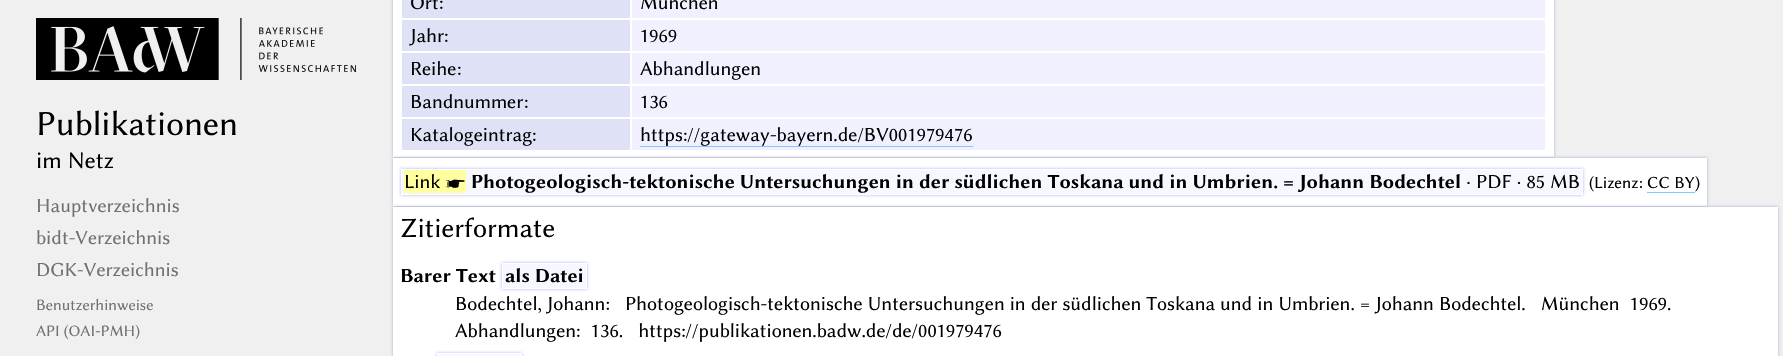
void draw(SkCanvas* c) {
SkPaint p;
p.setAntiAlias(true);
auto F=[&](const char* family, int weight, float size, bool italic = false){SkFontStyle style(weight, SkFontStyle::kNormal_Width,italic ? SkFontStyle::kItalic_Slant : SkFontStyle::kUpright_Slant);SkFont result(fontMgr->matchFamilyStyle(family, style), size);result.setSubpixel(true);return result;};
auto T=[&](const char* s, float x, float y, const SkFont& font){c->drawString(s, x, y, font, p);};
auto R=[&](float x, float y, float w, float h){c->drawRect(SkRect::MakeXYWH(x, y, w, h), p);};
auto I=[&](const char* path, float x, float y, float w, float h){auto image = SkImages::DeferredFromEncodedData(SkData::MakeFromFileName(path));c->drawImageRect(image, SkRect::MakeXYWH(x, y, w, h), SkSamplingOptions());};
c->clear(0xfff0f0f0);
I("1.png",36,18,320,62);
auto f1 = F("Libertinus Sans",400,35.25);
p.setColor(0xff000000);
T("Publikationen",36,135,f1);
auto f2 = F("Libertinus Sans",400,24);
T("im Netz",36,168,f2);
auto f3 = F("Libertinus Sans",400,20);
p.setColor(0xff707070);
T("Hauptverzeichnis",36,212,f3);
T("bidt-Verzeichnis",36,244,f3);
T("DGK-Verzeichnis",36,276,f3);
auto f4 = F("Libertinus Sans",400,16);
T("Benutzerhinweise",36,310,f4);
T("API (OAI-PMH)",36,336,f4);
p.setColor(0xffa0b0d0);
p.setMaskFilter(SkMaskFilter::MakeBlur(kNormal_SkBlurStyle, 1.5));
c->drawRect(SkRect::MakeXYWH(393,-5,1161,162),p);
p.setMaskFilter(nullptr);
p.setColor(0xffffffff);
R(393,0,1161,157);
p.setColor(0xffdfe2f6);
R(402,0,228,18);
p.setColor(0xff000000);
T("Ort",410,9,f3);
T(":",439,9,f3);
p.setColor(0xfff0f0ff);
R(632,0,913,18);
p.setColor(0xff000000);
T("München",640,9,f3);
p.setColor(0xffdfe2f6);
R(402,20,228,31);
p.setColor(0xff000000);
T("Jahr",410,42,f3);
T(":",444,42,f3);
p.setColor(0xfff0f0ff);
R(632,20,913,31);
p.setColor(0xff000000);
T("1969",640,42,f3);
p.setColor(0xffdfe2f6);
R(402,53,228,31);
p.setColor(0xff000000);
T("Reihe",410,75,f3);
T(":",457,75,f3);
p.setColor(0xfff0f0ff);
R(632,53,913,31);
p.setColor(0xff000000);
T("Abhandlungen",640,75,f3);
p.setColor(0xffdfe2f6);
R(402,86,228,31);
p.setColor(0xff000000);
T("Bandnummer",410,108,f3);
T(":",524,108,f3);
p.setColor(0xfff0f0ff);
R(632,86,913,31);
p.setColor(0xff000000);
T("136",640,108,f3);
p.setColor(0xffdfe2f6);
R(402,119,228,31);
p.setColor(0xff000000);
T("Katalogeintrag",410,141,f3);
T(":",532,141,f3);
p.setColor(0xfff0f0ff);
R(632,119,913,31);
p.setColor(0xff000000);
T("https://gateway-bayern.de/BV001979476",640,141,f3);
p.setColor(0xff80c8ff);
R(640,146,333,1);
p.setColor(0xffa0b0d0);
p.setMaskFilter(SkMaskFilter::MakeBlur(kNormal_SkBlurStyle, 1.5));
c->drawRect(SkRect::MakeXYWH(393,158,1314,48),p);
p.setMaskFilter(nullptr);
p.setColor(0xffffffff);
R(393,158,1314,48);
p.setColor(0xffaaafff);
p.setMaskFilter(SkMaskFilter::MakeBlur(kNormal_SkBlurStyle, 1.5));
c->drawRect(SkRect::MakeXYWH(401,169,1182,26),p);
p.setMaskFilter(nullptr);
p.setColor(0xfff7f8ff);
c->drawRect(SkRect::MakeXYWH(401.5,169.5,1181,25),p);
p.setStroke(true);
p.setStrokeWidth(1);
p.setColor(0xffffffff);
c->drawRect(SkRect::MakeXYWH(401.5,169.5,1181,25),p);
p.setStroke(false);
p.setColor(0xffffffa0);
R(404,170,62,23);
p.setColor(0xff000000);
T("Link ☛",404,188,f3);
auto f5 = F("Libertinus Sans",700,20);
T("Photogeologisch-tektonische Untersuchungen in der südlichen Toskana und in Umbrien. = Johann Bodechtel",471,188,f5);
T("· PDF · 85 MB",1466,188,f3);
auto f6 = F("Libertinus Sans",400,17);
T("(Lizenz",1589,188,f6);
T(": CC BY",1639,188,f6);
T(")",1695,188,f6);
p.setColor(0xff80c8ff);
R(1647,192,48,1);
p.setColor(0xffa0b0d0);
p.setMaskFilter(SkMaskFilter::MakeBlur(kNormal_SkBlurStyle, 1.5));
c->drawRect(SkRect::MakeXYWH(393,207,1385,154),p);
p.setMaskFilter(nullptr);
p.setColor(0xffffffff);
R(393,207,1385,149);
auto f7 = F("Libertinus Sans",400,28);
p.setColor(0xff000000);
T("Zitierformate",400,237,f7);
T("Barer Text",400,282,f5);
p.setColor(0xffaaafff);
p.setMaskFilter(SkMaskFilter::MakeBlur(kNormal_SkBlurStyle, 1.5));
c->drawRect(SkRect::MakeXYWH(502,263,85,26),p);
p.setMaskFilter(nullptr);
p.setColor(0xfff7f8ff);
c->drawRect(SkRect::MakeXYWH(502.5,263.5,84,25),p);
p.setStroke(true);
p.setColor(0xffffffff);
c->drawRect(SkRect::MakeXYWH(502.5,263.5,84,25),p);
p.setStroke(false);
p.setColor(0xff000000);
T("als Datei",505,282,f5);
T("Bodechtel, Johann: Photogeologisch-tektonische Untersuchungen in der südlichen Toskana und in Umbrien. = Johann Bodechtel. München 1969.",455,310,f3);
T("Abhandlungen: 136. https://publikationen.badw.de/de/001979476",455,337,f3);
p.setColor(0xffaaafff);
p.setMaskFilter(SkMaskFilter::MakeBlur(kNormal_SkBlurStyle, 1.5));
c->drawRect(SkRect::MakeXYWH(437,353,85,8),p);
p.setMaskFilter(nullptr);
p.setColor(0xfff7f8ff);
c->drawRect(SkRect::MakeXYWH(437.5,353.5,84,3),p);
p.setStroke(true);
p.setColor(0xffffffff);
c->drawRect(SkRect::MakeXYWH(437.5,353.5,84,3),p);
}
